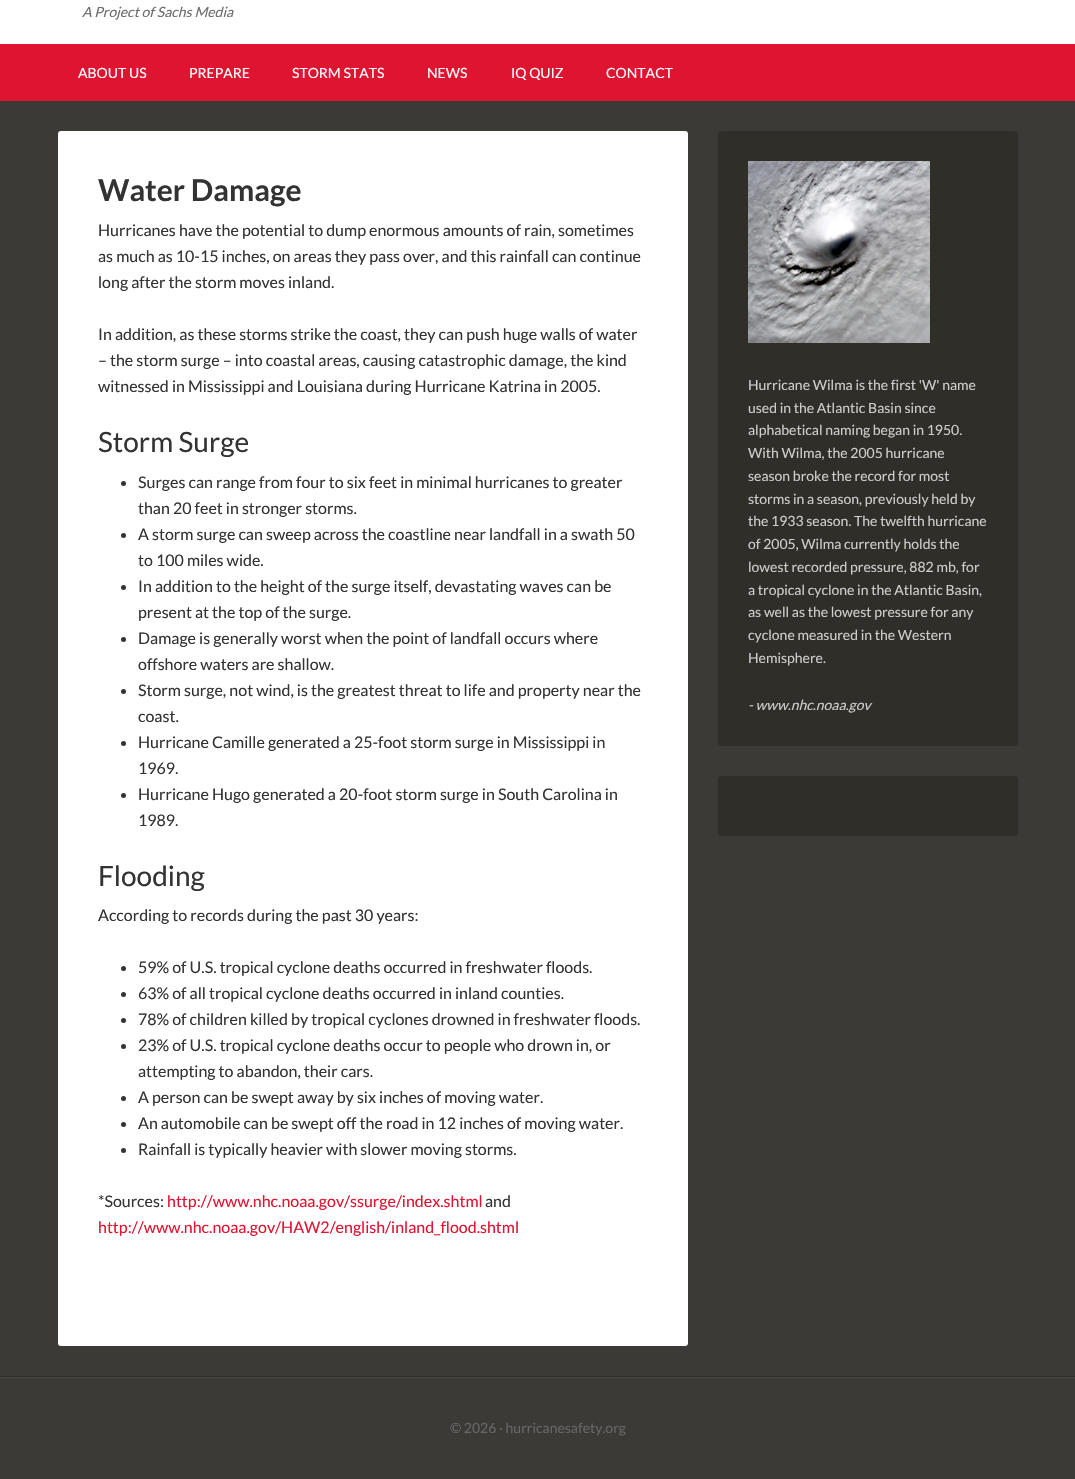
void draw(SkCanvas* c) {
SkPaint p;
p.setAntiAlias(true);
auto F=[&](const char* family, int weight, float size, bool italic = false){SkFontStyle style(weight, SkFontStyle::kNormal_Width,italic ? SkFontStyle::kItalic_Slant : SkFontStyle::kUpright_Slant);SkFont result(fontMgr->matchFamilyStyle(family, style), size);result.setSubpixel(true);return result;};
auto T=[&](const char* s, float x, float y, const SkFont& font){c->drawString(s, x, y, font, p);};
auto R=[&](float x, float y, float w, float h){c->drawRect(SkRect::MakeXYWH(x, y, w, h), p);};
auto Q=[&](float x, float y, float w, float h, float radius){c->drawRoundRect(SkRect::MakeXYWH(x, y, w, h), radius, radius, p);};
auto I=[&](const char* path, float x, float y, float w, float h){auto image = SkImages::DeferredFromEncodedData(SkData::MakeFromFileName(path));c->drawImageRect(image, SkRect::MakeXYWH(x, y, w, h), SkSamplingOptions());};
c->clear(0xff3c3a36);
p.setColor(0xffffffff);
R(0,0,1075,44);
auto f1 = F("Lato",400,14,true);
p.setColor(0xff6d6c6c);
T("A Project of Sachs Media",82,17,f1);
p.setColor(0xffdf1431);
R(0,44,1075,57);
auto f2 = F("Lato",400,14);
p.setColor(0xffffffff);
T("ABOUT US",78,78,f2);
T("PREPARE",189,78,f2);
T("STORM STATS",292,78,f2);
T("NEWS",427,78,f2);
T("IQ QUIZ",511,78,f2);
T("CONTACT",606,78,f2);
Q(58,131,630,1215,3);
auto f3 = F("Lato",700,30);
p.setColor(0xff333333);
T("Water Damage",98,201,f3);
auto f4 = F("Lato",400,16);
T("Hurricanes have the potential to dump enormous amounts of rain, sometimes",98,236,f4);
T("as much as 10-15 inches, on areas they pass over, and this rainfall can continue",98,262,f4);
T("long after the storm moves inland.",98,288,f4);
T("In addition, as these storms strike the coast, they can push huge walls of water",98,340,f4);
T("– the storm surge – into coastal areas, causing catastrophic damage, the kind",98,366,f4);
T("witnessed in Mississippi and Louisiana during Hurricane Katrina in 2005.",98,392,f4);
auto f5 = F("Lato",400,28);
T("Storm Surge",98,452,f5);
c->drawCircle(123.5,483.5,2.5,p);
T("Surges can range from four to six feet in minimal hurricanes to greater",138,488,f4);
T("than 20 feet in stronger storms.",138,514,f4);
c->drawCircle(123.5,535.5,2.5,p);
T("A storm surge can sweep across the coastline near landfall in a swath 50",138,540,f4);
T("to 100 miles wide.",138,566,f4);
c->drawCircle(123.5,587.5,2.5,p);
T("In addition to the height of the surge itself, devastating waves can be",138,592,f4);
T("present at the top of the surge.",138,618,f4);
c->drawCircle(123.5,639.5,2.5,p);
T("Damage is generally worst when the point of landfall occurs where",138,644,f4);
T("offshore waters are shallow.",138,670,f4);
c->drawCircle(123.5,691.5,2.5,p);
T("Storm surge, not wind, is the greatest threat to life and property near the",138,696,f4);
T("coast.",138,722,f4);
c->drawCircle(123.5,743.5,2.5,p);
T("Hurricane Camille generated a 25-foot storm surge in Mississippi in",138,748,f4);
T("1969.",138,774,f4);
c->drawCircle(123.5,795.5,2.5,p);
T("Hurricane Hugo generated a 20-foot storm surge in South Carolina in",138,800,f4);
T("1989.",138,826,f4);
T("Flooding",98,886,f5);
T("According to records during the past 30 years:",98,921,f4);
c->drawCircle(123.5,968.5,2.5,p);
T("59% of U.S. tropical cyclone deaths occurred in freshwater floods.",138,973,f4);
c->drawCircle(123.5,994.5,2.5,p);
T("63% of all tropical cyclone deaths occurred in inland counties.",138,999,f4);
c->drawCircle(123.5,1020.5,2.5,p);
T("78% of children killed by tropical cyclones drowned in freshwater floods.",138,1025,f4);
c->drawCircle(123.5,1046.5,2.5,p);
T("23% of U.S. tropical cyclone deaths occur to people who drown in, or",138,1051,f4);
T("attempting to abandon, their cars.",138,1077,f4);
c->drawCircle(123.5,1098.5,2.5,p);
T("A person can be swept away by six inches of moving water.",138,1103,f4);
c->drawCircle(123.5,1124.5,2.5,p);
T("An automobile can be swept off the road in 12 inches of moving water.",138,1129,f4);
c->drawCircle(123.5,1150.5,2.5,p);
T("Rainfall is typically heavier with slower moving storms.",138,1155,f4);
T("*Sources:",98,1207,f4);
p.setColor(0xffdf1431);
T("http://www.nhc.noaa.gov/ssurge/index.shtml",167,1207,f4);
p.setColor(0xff333333);
T("and",485,1207,f4);
p.setColor(0xffdf1431);
T("http://www.nhc.noaa.gov/HAW2/english/inland_flood.shtml",98,1233,f4);
p.setColor(0xff302e29);
Q(718,131,300,615,3);
I("1.png",748,161,182,182);
p.setColor(0xffcccccc);
T("Hurricane Wilma is the first 'W' name",748,390,f2);
T("used in the Atlantic Basin since",748,413,f2);
T("alphabetical naming began in 1950.",748,435,f2);
T("With Wilma, the 2005 hurricane",748,458,f2);
T("season broke the record for most",748,481,f2);
T("storms in a season, previously held by",748,504,f2);
T("the 1933 season. The twelfth hurricane",748,526,f2);
T("of 2005, Wilma currently holds the",748,549,f2);
T("lowest recorded pressure, 882 mb, for",748,572,f2);
T("a tropical cyclone in the Atlantic Basin,",748,595,f2);
T("as well as the lowest pressure for any",748,617,f2);
T("cyclone measured in the Western",748,640,f2);
T("Hemisphere.",748,663,f2);
T("- www.nhc.noaa.gov",748,710,f1);
p.setColor(0xff302e29);
Q(718,776,300,60,3);
p.setColor(0xff4a4844);
R(0,1377,1075,1);
p.setColor(0xff302e2b);
R(0,1376,1075,1);
p.setColor(0xff666666);
T("© 2026 · hurricanesafety.org",450,1433,f2);
}
